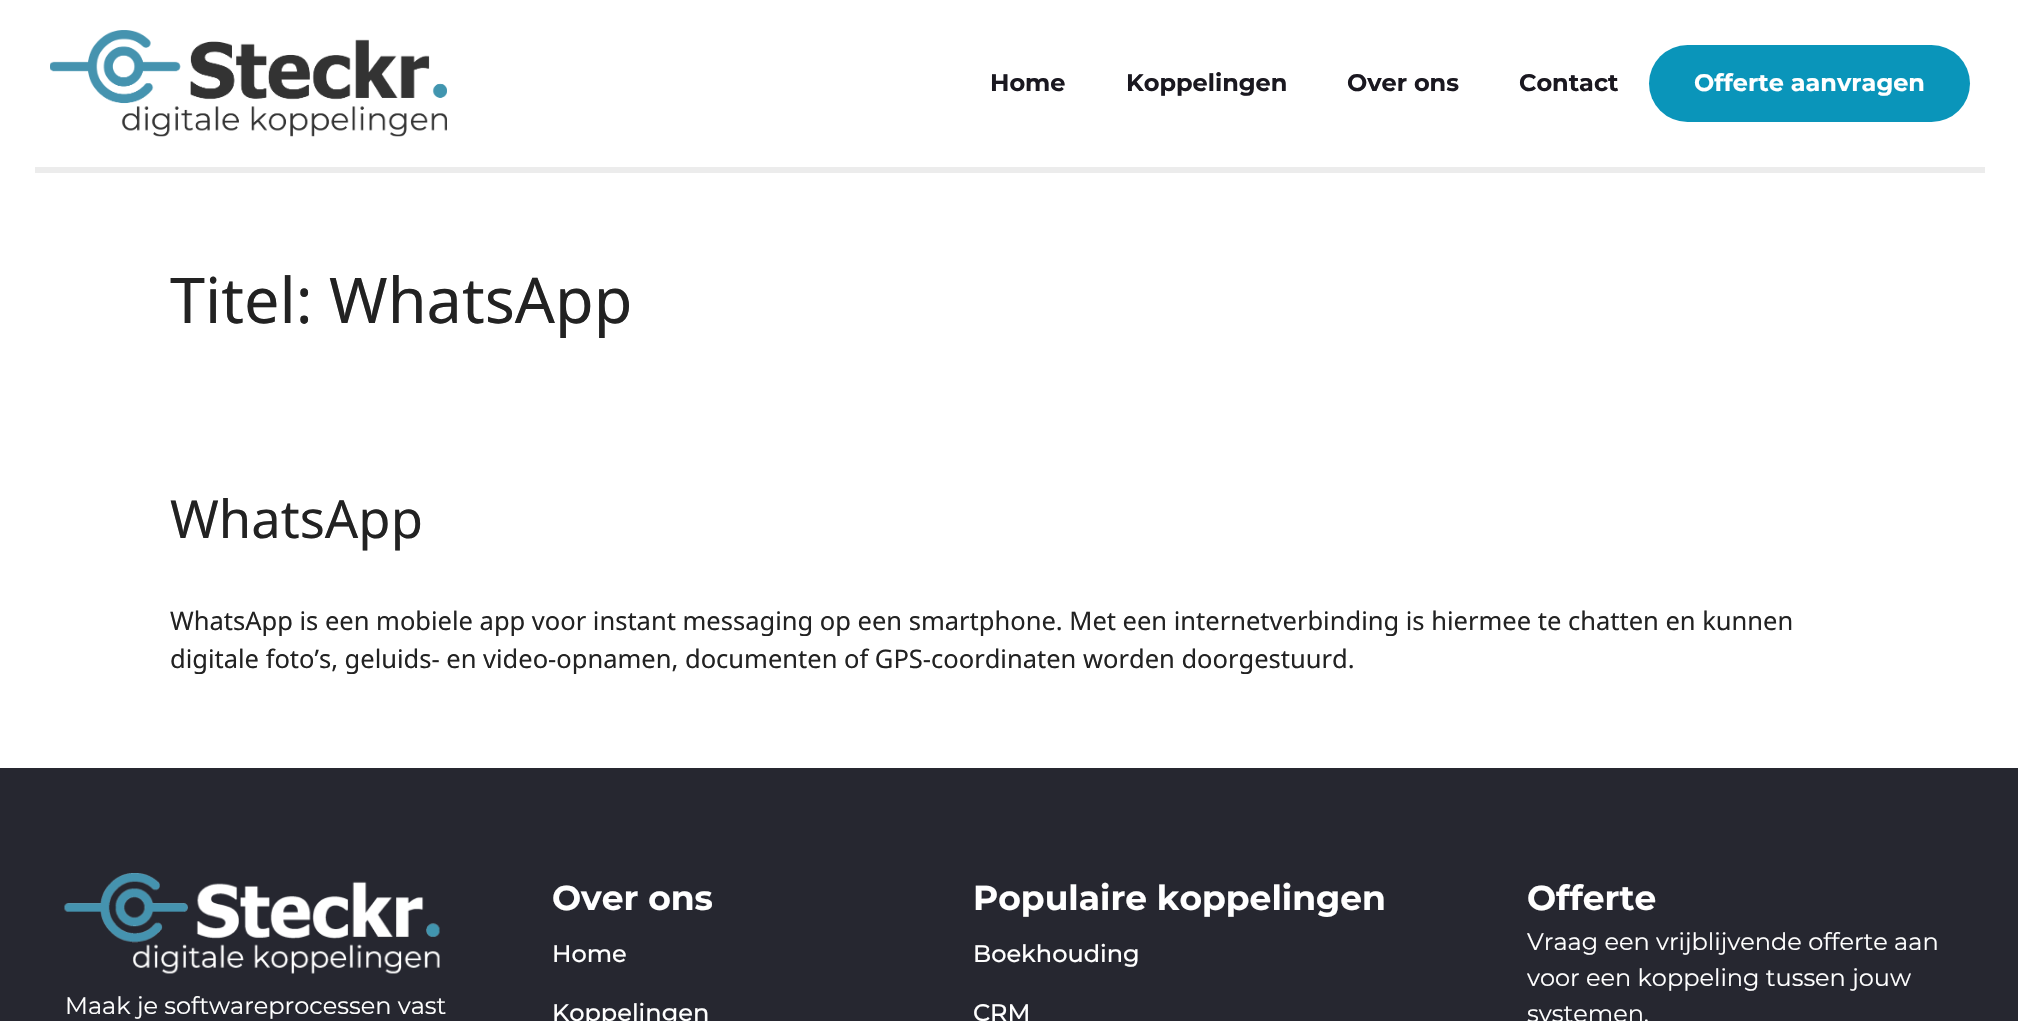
void draw(SkCanvas* c) {
SkPaint p;
p.setAntiAlias(true);
auto F=[&](const char* family, int weight, float size, bool italic = false){SkFontStyle style(weight, SkFontStyle::kNormal_Width,italic ? SkFontStyle::kItalic_Slant : SkFontStyle::kUpright_Slant);SkFont result(fontMgr->matchFamilyStyle(family, style), size);result.setSubpixel(true);return result;};
auto T=[&](const char* s, float x, float y, const SkFont& font){c->drawString(s, x, y, font, p);};
auto R=[&](float x, float y, float w, float h){c->drawRect(SkRect::MakeXYWH(x, y, w, h), p);};
auto Q=[&](float x, float y, float w, float h, float radius){c->drawRoundRect(SkRect::MakeXYWH(x, y, w, h), radius, radius, p);};
auto I=[&](const char* path, float x, float y, float w, float h){auto image = SkImages::DeferredFromEncodedData(SkData::MakeFromFileName(path));c->drawImageRect(image, SkRect::MakeXYWH(x, y, w, h), SkSamplingOptions());};
c->clear(0xffffffff);
I("1.png",50,30,397,107);
auto f1 = F("Montserrat",700,24);
p.setColor(0xff1a1820);
T("Home",990,91,f1);
T("Koppelingen",1126,91,f1);
T("Over ons",1347,91,f1);
T("Contact",1519,91,f1);
p.setColor(0xff0a95ba);
Q(1649,45,321,77,38.5);
p.setColor(0xffffffff);
T("Offerte aanvragen",1694,91,f1);
p.setColor(0xffececec);
R(35,167,1950,6);
auto f2 = F("Noto Sans",400,63);
p.setColor(0xff222222);
T("Titel: WhatsApp",170,323,f2);
auto f3 = F("Noto Sans",400,52.5);
T("WhatsApp",170,538,f3);
auto f4 = F("Noto Sans",400,25.5);
T("WhatsApp is een mobiele app voor instant messaging op een smartphone. Met een internetverbinding is hiermee te chatten en kunnen",170,630,f4);
T("digitale foto’s, geluids- en video-opnamen, documenten of GPS-coordinaten worden doorgestuurd.",170,668,f4);
p.setColor(0xff262730);
R(0,768,2018,253);
I("2.png",64,873,376,101);
auto f5 = F("Montserrat",400,24);
p.setColor(0xffffffff);
T("Maak je softwareprocessen vast",65,1014,f5);
auto f6 = F("Montserrat",700,34.5);
T("Over ons",552,910,f6);
auto f7 = F("Montserrat",500,24);
T("Home",552,962,f7);
T("Koppelingen",552,1021,f7);
T("Populaire koppelingen",973,910,f6);
T("Boekhouding",973,962,f7);
T("CRM",973,1021,f7);
T("Offerte",1527,910,f6);
T("Vraag een vrijblijvende offerte aan",1527,950,f5);
T("voor een koppeling tussen jouw",1527,986,f5);
T("systemen.",1527,1022,f5);
}
